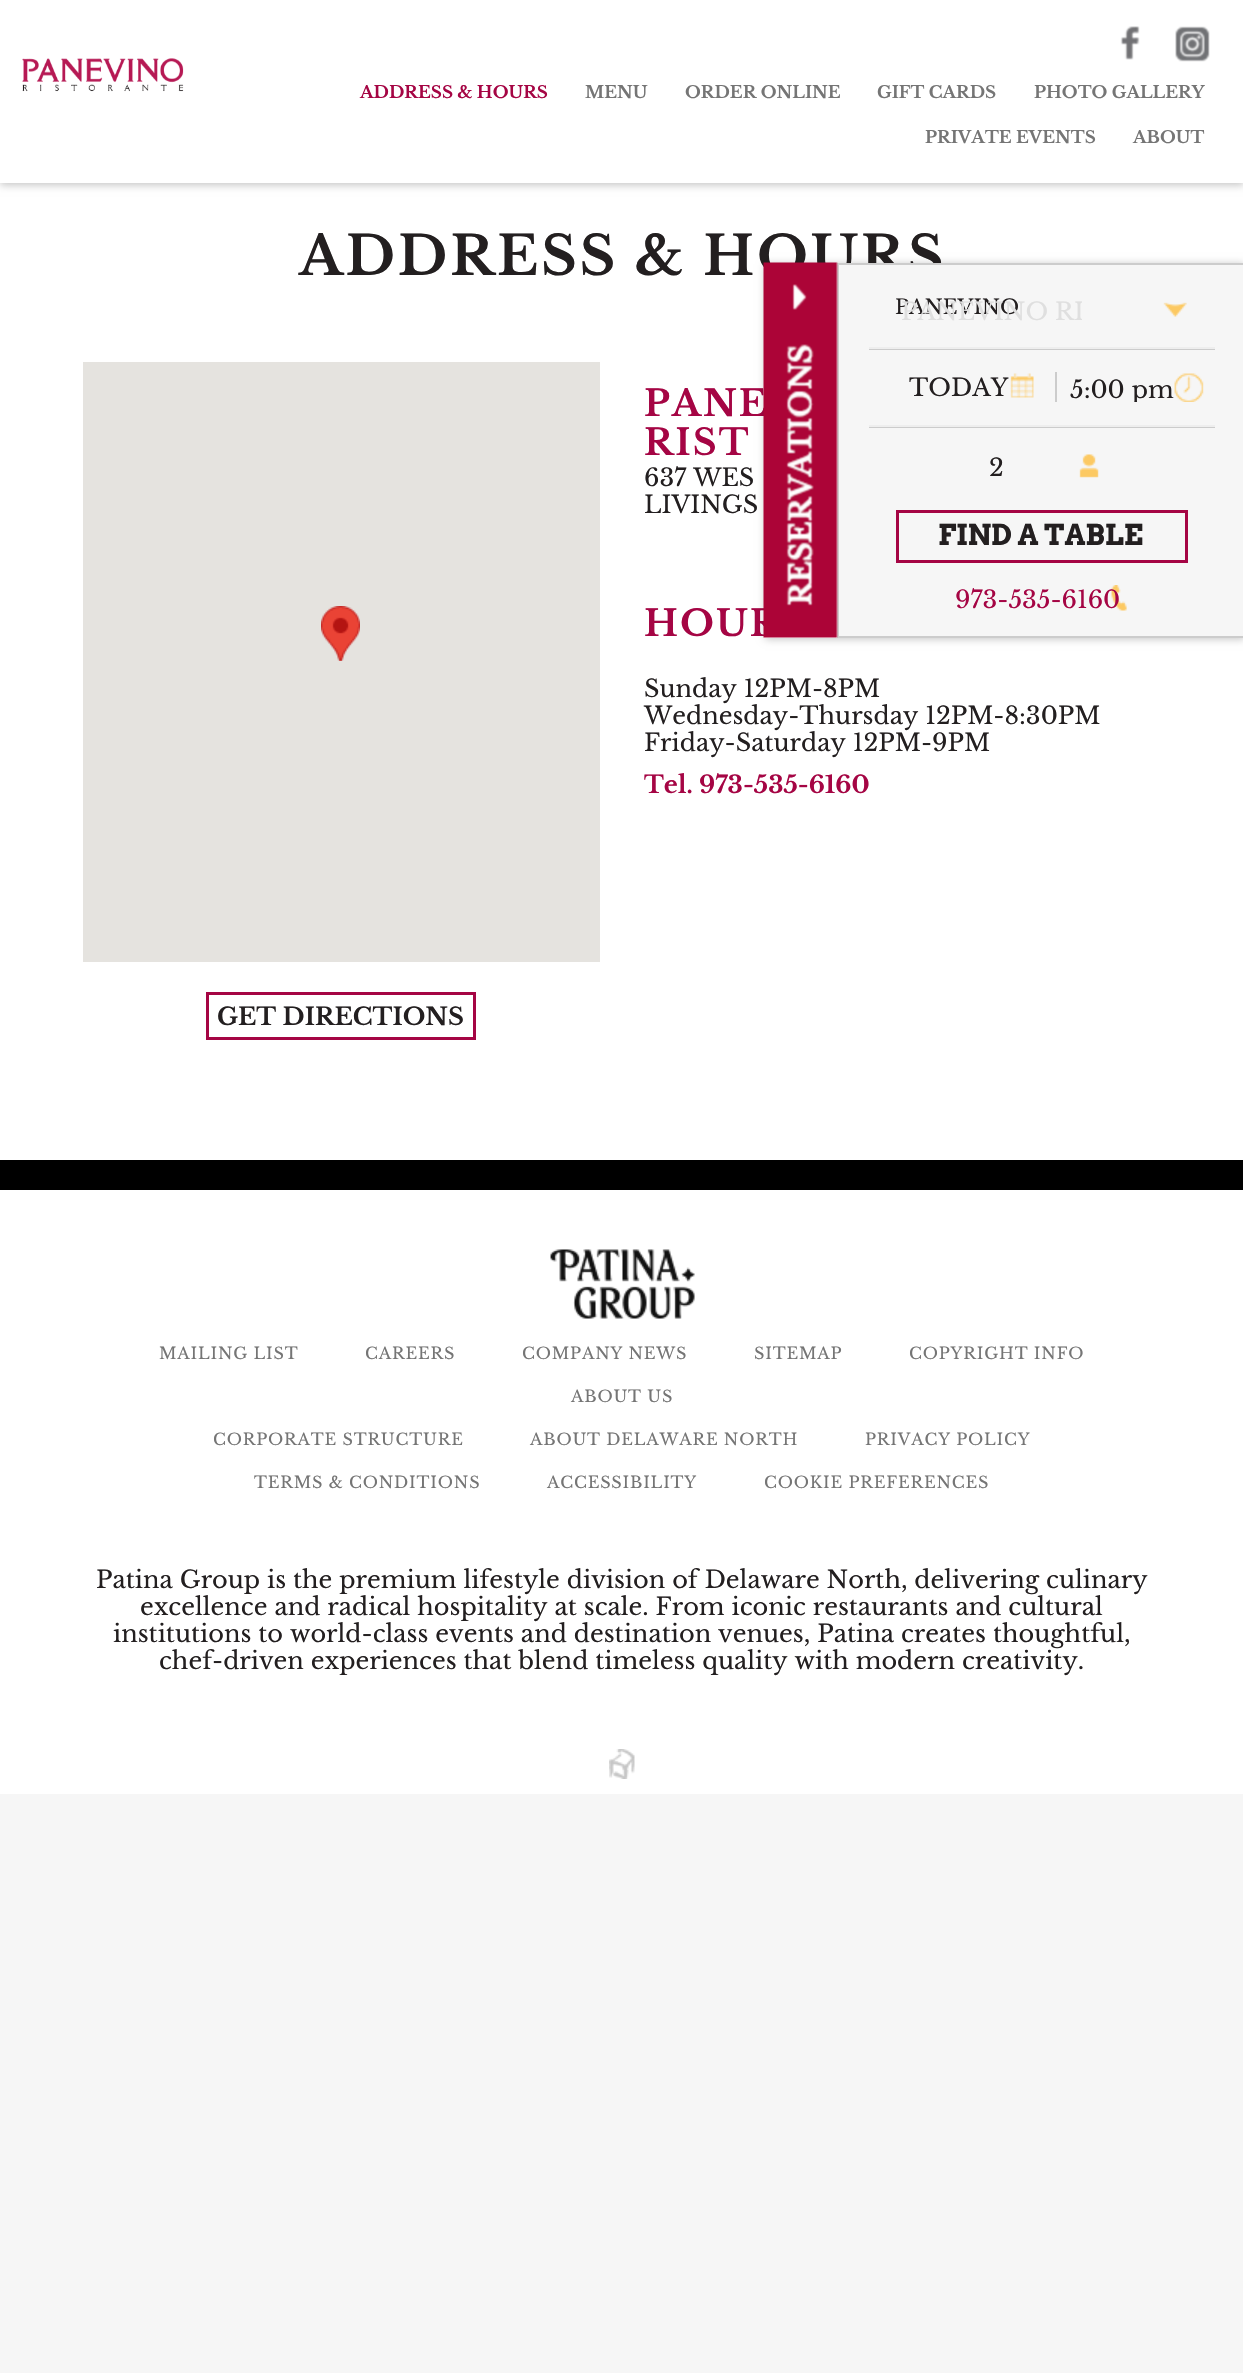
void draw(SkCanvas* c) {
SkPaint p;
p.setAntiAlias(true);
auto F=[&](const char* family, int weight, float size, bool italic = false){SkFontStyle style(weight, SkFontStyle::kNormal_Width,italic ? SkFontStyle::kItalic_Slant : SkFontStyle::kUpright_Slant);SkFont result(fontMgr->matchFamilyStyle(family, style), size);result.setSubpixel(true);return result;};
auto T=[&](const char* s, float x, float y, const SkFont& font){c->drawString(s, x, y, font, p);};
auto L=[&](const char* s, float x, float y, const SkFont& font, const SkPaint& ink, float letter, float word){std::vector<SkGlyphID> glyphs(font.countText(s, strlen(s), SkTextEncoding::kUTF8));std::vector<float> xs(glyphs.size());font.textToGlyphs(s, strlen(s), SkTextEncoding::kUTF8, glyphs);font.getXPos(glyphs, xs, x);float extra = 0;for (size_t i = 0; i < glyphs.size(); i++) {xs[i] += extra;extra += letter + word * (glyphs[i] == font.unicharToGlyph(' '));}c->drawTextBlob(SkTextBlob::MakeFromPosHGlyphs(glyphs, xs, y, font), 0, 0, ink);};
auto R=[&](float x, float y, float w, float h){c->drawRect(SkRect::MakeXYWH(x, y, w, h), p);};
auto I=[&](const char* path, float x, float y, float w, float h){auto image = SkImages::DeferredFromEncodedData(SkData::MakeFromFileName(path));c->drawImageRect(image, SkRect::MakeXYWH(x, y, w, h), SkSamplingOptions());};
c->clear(0xfff6f6f6);
p.setColor(0xffffffff);
R(0,183,1243,977);
p.setColor(0x3b000000);
p.setMaskFilter(SkMaskFilter::MakeBlur(kNormal_SkBlurStyle, 4));
c->drawRect(SkRect::MakeXYWH(0,2,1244,183),p);
p.setMaskFilter(nullptr);
p.setColor(0xffffffff);
R(0,0,1243,183);
I("1.png",22,58,162,34);
I("2.png",1120,26,20,34);
I("3.png",1175,26,35,36);
auto f1 = F("Libre Baskerville",700,16.75);
p.setColor(0xffa50544);
T("ADDRESS & HOURS",360,98,f1);
p.setColor(0xff757575);
T("MENU",585,98,f1);
T("ORDER ONLINE",685,98,f1);
T("GIFT CARDS",877,98,f1);
T("PHOTO GALLERY",1034,98,f1);
T("PRIVATE EVENTS",925,143,f1);
T("ABOUT",1133,143,f1);
auto f2 = F("Libre Baskerville",700,54);
p.setColor(0xff231f20);
L("ADDRESS & HOURS",299,275,f2,p,2.75,0);
auto f3 = F("Libre Baskerville",700,36);
p.setColor(0xffa50544);
L("PANE",644,416,f3,p,2,0);
L("RIST",644,455,f3,p,2,0);
auto f4 = F("Libre Baskerville",400,24);
p.setColor(0xff231f20);
T("637 WES",644,486,f4);
T("LIVINGS",644,513,f4);
p.setColor(0xffa50544);
L("HOUR",644,636,f3,p,2,0);
p.setColor(0xff231f20);
T("Sunday 12PM-8PM",644,697,f4);
T("Wednesday-Thursday 12PM-8:30PM",644,724,f4);
T("Friday-Saturday 12PM-9PM",644,751,f4);
auto f5 = F("Libre Baskerville",700,24);
p.setColor(0xffa50544);
T("Tel. 973-535-6160",644,793,f5);
p.setColor(0xffe5e3df);
R(83,362,517,600);
I("4.png",321,606,39,55);
p.setStroke(true);
p.setStrokeWidth(3);
p.setColor(0xffa50544);
c->drawRect(SkRect::MakeXYWH(207.5,993.5,267,45),p);
p.setStroke(false);
p.setColor(0xff231f20);
T("GET DIRECTIONS",217,1025,f5);
p.setColor(0x3b000000);
p.setMaskFilter(SkMaskFilter::MakeBlur(kNormal_SkBlurStyle, 4));
c->drawRect(SkRect::MakeXYWH(765,264,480,375),p);
p.setMaskFilter(nullptr);
p.setColor(0xffffffff);
R(764,263,73,375);
p.setColor(0xffcccccc);
R(837,263,406,2);
R(837,636,406,2);
R(837,263,2,375);
I("5.png",763,262,75,376);
p.setColor(0xfff6f6f6);
R(839,265,404,371);
I("6.png",1163,302,24,15);
auto f6 = F("Libre Baskerville",400,20.25);
p.setColor(0xff231f20);
T("PANEVINO",895,314,f6);
c->save();
c->clipRect(SkRect::MakeXYWH(902,294,180,30));
p.setColor(0xffdfdfdf);
T("PANEVINO RI",901,320,f4);
c->restore();
p.setColor(0xffcccccc);
R(869,349,346,1);
p.setColor(0xffeeeeee);
R(869,347,346,2);
p.setColor(0xffcccccc);
R(1055,372,2,30);
I("7.png",1010,373,24,25);
p.setColor(0xff231f20);
T("TODAY",909,396,f4);
I("8.png",1174,373,30,29);
c->save();
c->clipRect(SkRect::MakeXYWH(1070,372,166,30));
T("5:00 pm",1070,398,f4);
c->restore();
p.setColor(0xffcccccc);
R(869,427,346,1);
p.setColor(0xffeeeeee);
R(869,425,346,2);
I("9.png",1079,454,20,24);
p.setColor(0xff231f20);
T("2",989,476,f4);
p.setStroke(true);
p.setColor(0xffa50544);
c->drawRect(SkRect::MakeXYWH(897.5,511.5,289,50),p);
auto f7 = F("Arvo",700,28.75);
p.setStroke(false);
p.setColor(0xff231f20);
T("FIND A TABLE",938,545,f7);
I("10.png",1111,585,16,26);
p.setColor(0xffa50544);
T("973-535-6160",955,608,f4);
p.setColor(0xffffffff);
R(0,1190,1243,604);
p.setColor(0xff000000);
R(0,1160,1243,30);
I("11.png",550,1249,145,70);
auto f8 = F("Libre Baskerville",400,16.1);
p.setColor(0xff757575);
L("MAILING LIST",159,1359,f8,p,.8,0);
L("CAREERS",365,1359,f8,p,.8,0);
L("COMPANY NEWS",522,1359,f8,p,.8,0);
L("SITEMAP",754,1359,f8,p,.8,0);
L("COPYRIGHT INFO",909,1359,f8,p,.8,0);
L("ABOUT US",571,1402,f8,p,.8,0);
L("CORPORATE STRUCTURE",213,1445,f8,p,.8,0);
L("ABOUT DELAWARE NORTH",530,1445,f8,p,.8,0);
L("PRIVACY POLICY",865,1445,f8,p,.8,0);
L("TERMS & CONDITIONS",254,1488,f8,p,.8,0);
L("ACCESSIBILITY",547,1488,f8,p,.8,0);
L("COOKIE PREFERENCES",764,1488,f8,p,.8,0);
p.setColor(0xff231f20);
T("Patina Group is the premium lifestyle division of Delaware North, delivering culinary",96,1588,f4);
T("excellence and radical hospitality at scale. From iconic restaurants and cultural",140,1615,f4);
T("institutions to world-class events and destination venues, Patina creates thoughtful,",113,1642,f4);
T("chef-driven experiences that blend timeless quality with modern creativity.",159,1669,f4);
I("12.png",609,1749,26,30);
}
